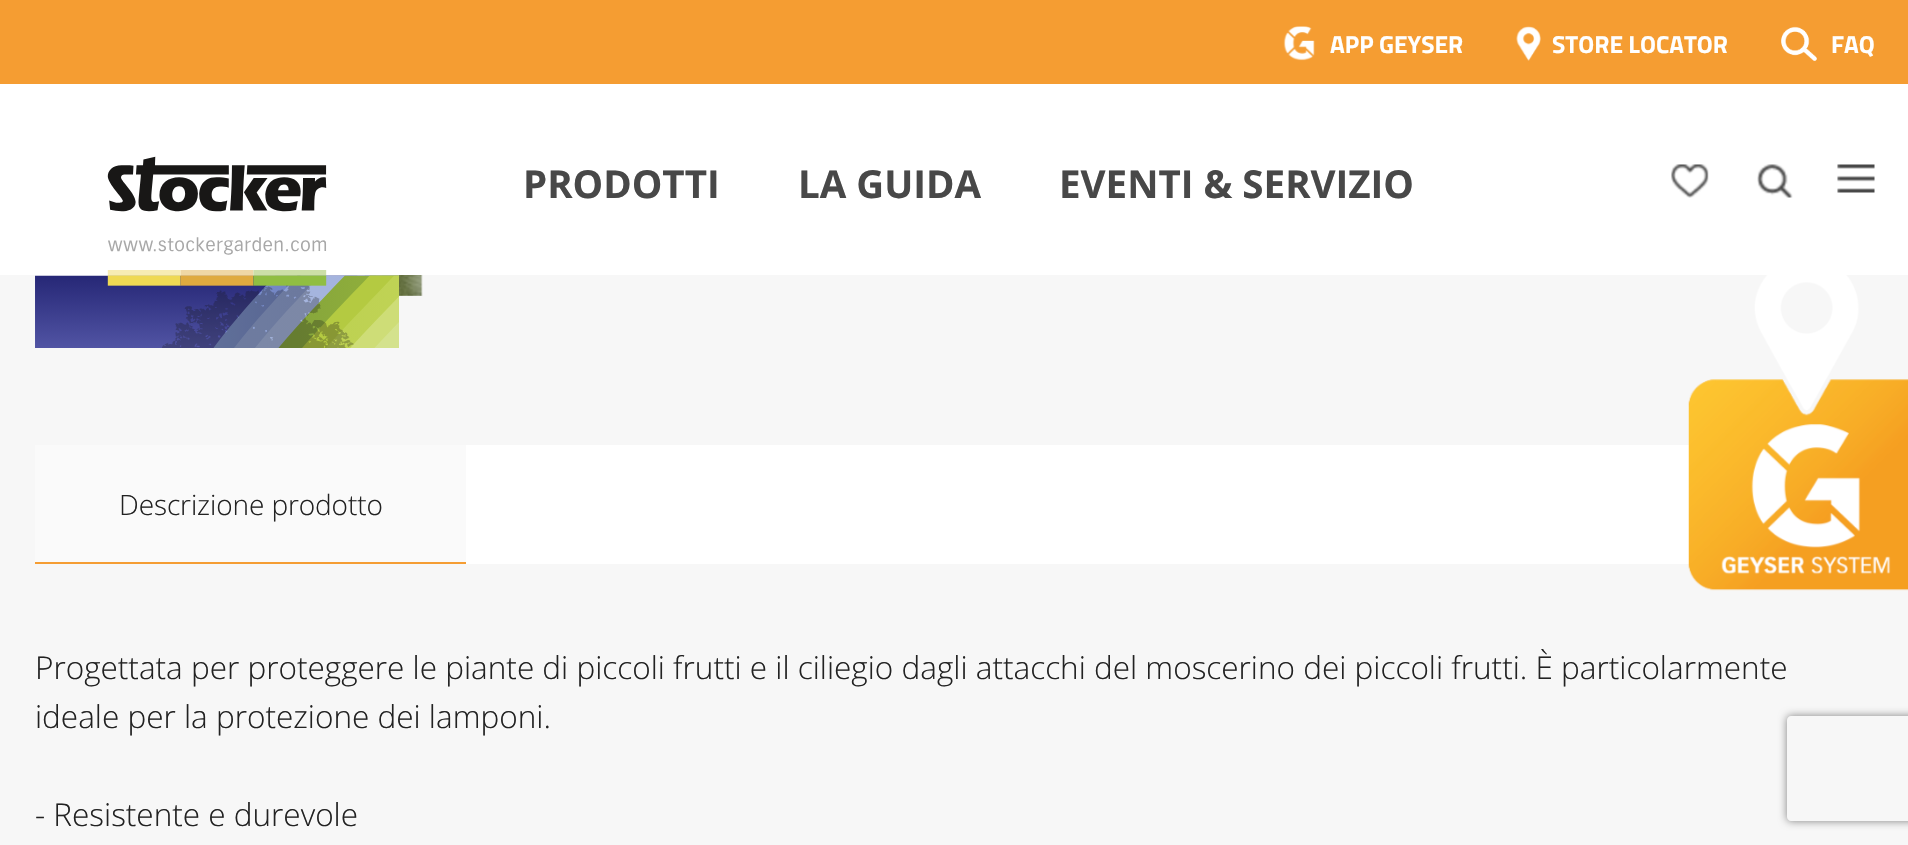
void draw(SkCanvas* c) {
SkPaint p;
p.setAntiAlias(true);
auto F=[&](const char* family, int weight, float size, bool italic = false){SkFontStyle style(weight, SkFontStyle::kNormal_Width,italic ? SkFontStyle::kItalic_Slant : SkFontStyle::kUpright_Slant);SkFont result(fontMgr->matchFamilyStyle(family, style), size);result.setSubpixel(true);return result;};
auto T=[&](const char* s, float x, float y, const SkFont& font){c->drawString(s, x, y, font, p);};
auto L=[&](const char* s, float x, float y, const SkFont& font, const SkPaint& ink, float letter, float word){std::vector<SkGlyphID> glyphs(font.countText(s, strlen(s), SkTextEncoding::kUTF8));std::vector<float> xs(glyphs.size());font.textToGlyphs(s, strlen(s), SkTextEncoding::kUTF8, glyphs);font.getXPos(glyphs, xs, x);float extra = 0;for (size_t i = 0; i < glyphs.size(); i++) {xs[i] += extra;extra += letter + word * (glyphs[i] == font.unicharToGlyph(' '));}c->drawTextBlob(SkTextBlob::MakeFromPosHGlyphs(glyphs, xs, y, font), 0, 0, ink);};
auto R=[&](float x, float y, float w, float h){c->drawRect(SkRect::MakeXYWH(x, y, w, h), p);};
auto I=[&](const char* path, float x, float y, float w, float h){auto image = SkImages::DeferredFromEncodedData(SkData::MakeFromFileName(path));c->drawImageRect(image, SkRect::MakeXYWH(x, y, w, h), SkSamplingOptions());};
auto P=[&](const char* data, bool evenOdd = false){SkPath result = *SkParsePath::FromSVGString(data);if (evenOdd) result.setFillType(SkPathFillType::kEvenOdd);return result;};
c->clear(0xfff7f7f7);
p.setColor(0xffffffff);
R(0,84,1908,191);
p.setColor(0xfff59d32);
R(0,0,1908,84);
I("1.png",1283,26,32,35);
auto f1 = F("Titillium Web",700,24.5);
p.setColor(0xffffffff);
T("APP GEYSER",1330,53,f1);
I("2.png",1516,26,25,35);
T("STORE LOCATOR",1552,53,f1);
I("3.png",1781,26,36,35);
T("FAQ",1831,53,f1);
I("4.png",35,156,364,192);
auto f2 = F("Open Sans",700,38.5);
p.setColor(0xff484848);
T("PRODOTTI",523,198,f2);
T("LA GUIDA",798,198,f2);
T("EVENTI & SERVIZIO",1059,198,f2);
I("5.png",1671,164,38,34);
I("6.png",1757,164,36,34);
I("7.png",1837,164,38,29);
I("8.png",399,275,24,21);
p.setColor(0xffffffff);
R(466,445,1224,119);
p.setColor(0xfffafafa);
R(35,445,431,117);
p.setColor(0xfff59d33);
R(35,562,431,2);
auto f3 = F("Open Sans",300,28);
p.setColor(0xff222222);
L("Descrizione prodotto",119,515,f3,p,-.1,0);
auto f4 = F("Open Sans",300,31.5);
T("Progettata per proteggere le piante di piccoli frutti e il ciliegio dagli attacchi del moscerino dei piccoli frutti. È particolarmente",35,679,f4);
T("ideale per la protezione dei lamponi.",35,728,f4);
T("- Resistente e durevole",35,826,f4);
c->save();
c->clipPath(P("M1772 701h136v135h-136zm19 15h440c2 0 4 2 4 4v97c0 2-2 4-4 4h-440c-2 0-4-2-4-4v-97c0-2 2-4 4-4z",true),true);
p.setColor(0xff808080);
p.setMaskFilter(SkMaskFilter::MakeBlur(kNormal_SkBlurStyle, 4.5));
c->drawRoundRect(SkRect::MakeXYWH(1787,716,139,105),4,4,p);
p.setMaskFilter(nullptr);
c->restore();
I("9.png",1688,275,220,316);
}
